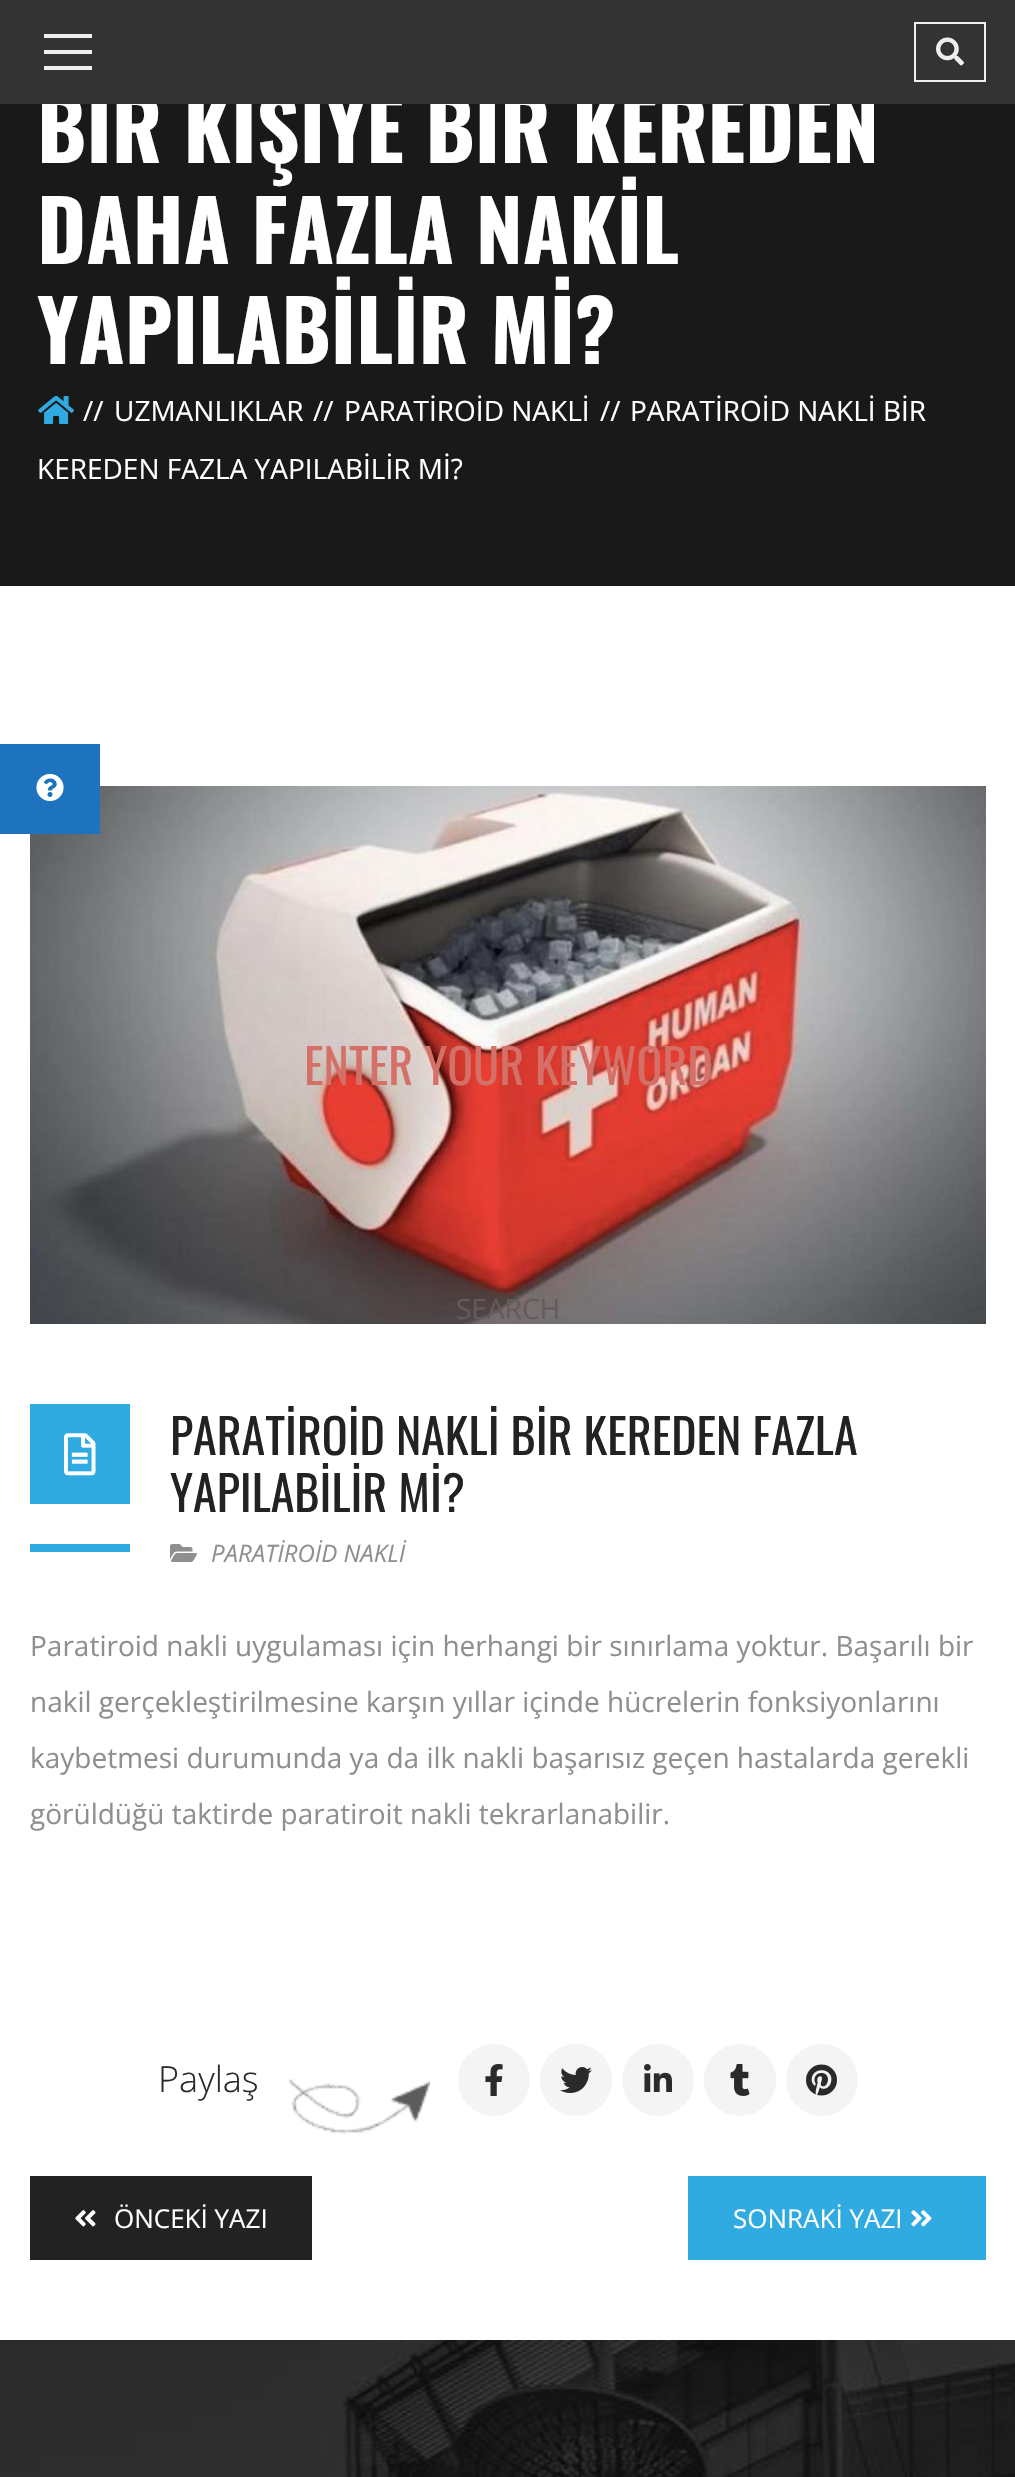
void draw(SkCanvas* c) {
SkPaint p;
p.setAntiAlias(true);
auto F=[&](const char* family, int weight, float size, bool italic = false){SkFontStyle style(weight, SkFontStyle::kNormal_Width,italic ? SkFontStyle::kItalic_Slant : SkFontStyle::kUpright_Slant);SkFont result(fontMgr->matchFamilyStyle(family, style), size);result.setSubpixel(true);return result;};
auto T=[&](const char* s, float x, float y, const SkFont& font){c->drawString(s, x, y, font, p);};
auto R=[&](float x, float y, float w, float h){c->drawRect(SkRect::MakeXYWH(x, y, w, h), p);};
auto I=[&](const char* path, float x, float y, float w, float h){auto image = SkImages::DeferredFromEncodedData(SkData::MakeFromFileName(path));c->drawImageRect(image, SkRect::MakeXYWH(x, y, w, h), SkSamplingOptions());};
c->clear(0xffffffff);
p.setColor(0xff191919);
R(0,104,1015,482);
auto f1 = F("Oswald",700,84);
p.setColor(0xffffffff);
T("BİR KİŞİYE BİR KEREDEN",37,163,f1);
p.setColor(0xff333333);
R(0,0,1015,104);
p.setColor(0xffeeeeee);
R(44,34,48,4);
R(44,50,48,4);
R(44,66,48,4);
p.setStroke(true);
p.setStrokeWidth(2);
c->drawRect(SkRect::MakeXYWH(915,23,70,58),p);
I("1.png",936,37,28,29);
p.setStroke(false);
p.setColor(0xffffffff);
T("DAHA FAZLA NAKİL",37,264,f1);
T("YAPILABİLİR Mİ?",37,364,f1);
auto f2 = F("Open Sans",400,28);
T("//",600,421,f2);
T("PARATİROİD NAKLİ BİR",630,421,f2);
T("KEREDEN FAZLA YAPILABİLİR Mİ?",37,479,f2);
I("2.png",38,396,36,28);
T("//",83,421,f2);
T("UZMANLIKLAR",114,421,f2);
T("//",313,421,f2);
T("PARATİROİD NAKLİ",344,421,f2);
I("3.png",30,786,956,538);
p.setColor(0xff30abe2);
R(30,1404,100,100);
I("4.png",64,1433,32,43);
R(30,1544,100,8);
auto f3 = F("Oswald",400,48);
p.setColor(0xff222222);
T("PARATİROİD NAKLİ BİR KEREDEN FAZLA",170,1455,f3);
T("YAPILABİLİR Mİ?",170,1512,f3);
I("5.png",170,1544,27,18);
auto f4 = F("Open Sans",400,24,true);
p.setColor(0xff8f8f8f);
T("PARATİROİD NAKLİ",211,1562,f4);
T("Paratiroid nakli uygulaması için herhangi bir sınırlama yoktur. Başarılı bir",30,1656,f2);
T("nakil gerçekleştirilmesine karşın yıllar içinde hücrelerin fonksiyonlarını",30,1712,f2);
T("kaybetmesi durumunda ya da ilk nakli başarısız geçen hastalarda gerekli",30,1768,f2);
T("görüldüğü taktirde paratiroit nakli tekrarlanabilir.",30,1824,f2);
auto f5 = F("Open Sans",300,36);
p.setColor(0xff2a2a2a);
T("Paylaş",158,2092,f5);
I("6.png",288,2079,142,55);
p.setColor(0xfff4f4f4);
c->drawCircle(494,2080,36,p);
I("7.png",485,2064,18,32);
c->drawCircle(576,2080,36,p);
I("8.png",560,2067,32,26);
c->drawCircle(658,2080,36,p);
I("9.png",644,2064,28,28);
c->drawCircle(740,2080,36,p);
I("10.png",730,2064,20,32);
c->drawCircle(822,2080,36,p);
I("11.png",806,2064,31,32);
p.setColor(0xff222222);
R(30,2176,282,84);
I("12.png",75,2210,21,17);
auto f6 = F("Open Sans",400,26);
p.setColor(0xffffffff);
T("ÖNCEKİ YAZI",114,2228,f6);
p.setColor(0xff30abe2);
R(688,2176,298,84);
p.setColor(0xffffffff);
T("SONRAKİ YAZI",733,2228,f6);
I("13.png",911,2210,21,17);
p.setColor(0xffd47067);
T("ENTER YOUR KEYWORD",304,1085,f3);
p.setColor(0xff655b5c);
T("SEARCH",456,1319,f2);
I("14.png",0,2340,1015,137);
p.setColor(0xff1e73be);
R(0,744,100,90);
I("15.png",36,774,28,27);
}
